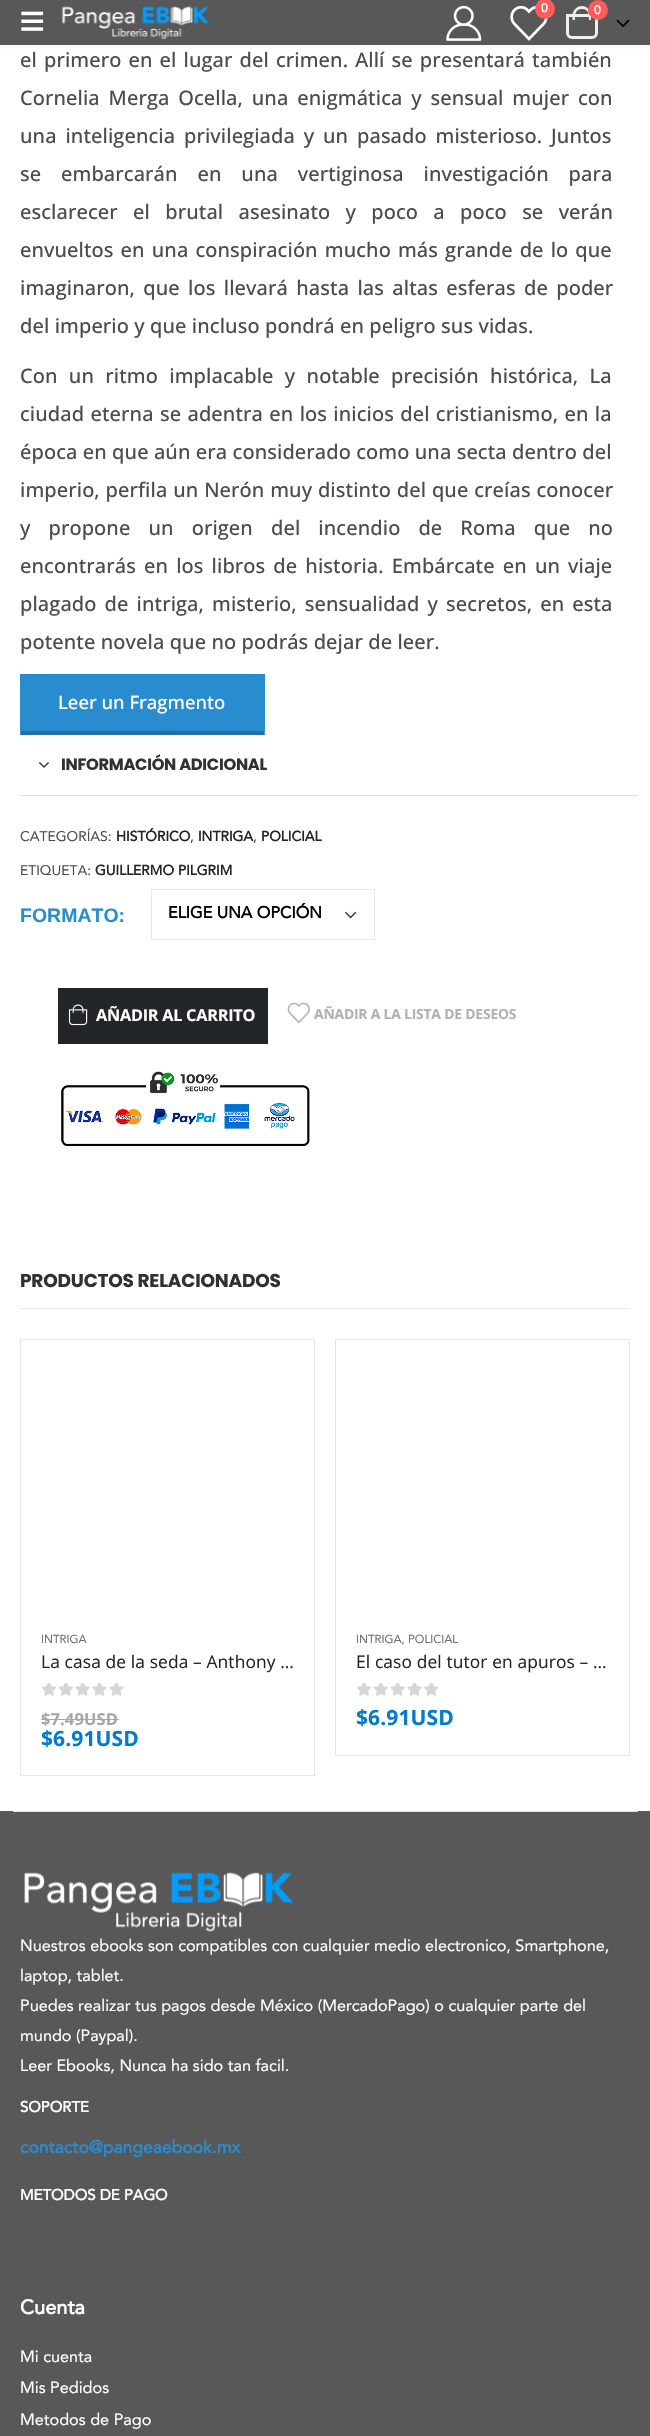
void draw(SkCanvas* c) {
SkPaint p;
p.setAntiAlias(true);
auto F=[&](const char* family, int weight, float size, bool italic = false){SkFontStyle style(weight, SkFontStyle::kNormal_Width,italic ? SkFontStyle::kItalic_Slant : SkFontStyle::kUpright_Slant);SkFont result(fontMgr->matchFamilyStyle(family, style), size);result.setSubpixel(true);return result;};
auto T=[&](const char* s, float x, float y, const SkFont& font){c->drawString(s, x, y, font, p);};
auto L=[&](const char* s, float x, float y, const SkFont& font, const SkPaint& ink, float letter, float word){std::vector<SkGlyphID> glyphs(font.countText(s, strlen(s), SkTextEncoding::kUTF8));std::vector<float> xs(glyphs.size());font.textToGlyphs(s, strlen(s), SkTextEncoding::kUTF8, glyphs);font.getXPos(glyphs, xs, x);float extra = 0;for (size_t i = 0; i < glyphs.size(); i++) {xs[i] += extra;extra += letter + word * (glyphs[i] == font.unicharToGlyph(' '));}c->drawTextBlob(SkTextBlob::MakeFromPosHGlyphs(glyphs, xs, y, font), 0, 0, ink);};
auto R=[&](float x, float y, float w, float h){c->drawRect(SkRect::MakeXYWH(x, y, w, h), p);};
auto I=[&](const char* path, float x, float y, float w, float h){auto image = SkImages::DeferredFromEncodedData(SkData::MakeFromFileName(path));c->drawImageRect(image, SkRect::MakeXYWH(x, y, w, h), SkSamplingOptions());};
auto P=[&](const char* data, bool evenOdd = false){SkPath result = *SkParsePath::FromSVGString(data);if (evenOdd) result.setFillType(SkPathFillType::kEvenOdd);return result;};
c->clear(0xffffffff);
p.setColor(0x0f000000);
p.setMaskFilter(SkMaskFilter::MakeBlur(kNormal_SkBlurStyle, 2));
c->drawRect(SkRect::MakeXYWH(0,0,650,45),p);
p.setMaskFilter(nullptr);
p.setColor(0xff585858);
R(0,0,650,45);
I("1.png",21,11,23,20);
I("2.png",61,6,149,34);
I("3.png",446,5,36,36);
I("4.png",510,5,38,36);
p.setColor(0xffff5b5b);
c->drawCircle(545,9,10,p);
auto f1 = F("Avenir",700,12);
p.setColor(0xffffffff);
T("0",541,12,f1);
p.setStroke(true);
p.setStrokeWidth(3);
p.setColor(0xffeeeeee);
c->drawPath(P("M567.5 15.5h29v17.5c0 2.5-2 4.5-4.5 4.5h-20c-2.5 0-4.5-2-4.5-4.5z"),p);
p.setStroke(false);
c->drawPath(P("M582 6c5 0 9 4.5 9 9.5v4.5h-18.5v-4.5c0-5 4-9.5 9.5-9.5zm0 3c7 0 7 6 7 11h-14c0-5 0-11 7-11z",true),p);
p.setColor(0xffff5b5b);
c->drawCircle(598,10,10,p);
p.setColor(0xffffffff);
T("0",594,14,f1);
I("5.png",616,19,14,9);
auto f2 = F("Open Sans",500,20);
p.setColor(0xff4c4c4c);
L("el primero en el lugar del crimen. Allí se presentará también",20,67,f2,p,.1,1.75);
L("Cornelia Merga Ocella, una enigmática y sensual mujer con",20,105,f2,p,.1,3.5);
L("una inteligencia privilegiada y un pasado misterioso. Juntos",20,143,f2,p,.1,3.5);
L("se embarcarán en una vertiginosa investigación para",20,181,f2,p,.1,14.5);
L("esclarecer el brutal asesinato y poco a poco se verán",20,219,f2,p,.1,10);
L("envueltos en una conspiración mucho más grande de lo que",20,257,f2,p,.1,1.75);
L("imaginaron, que los llevará hasta las altas esferas de poder",20,295,f2,p,.1,3);
L("del imperio y que incluso pondrá en peligro sus vidas.",20,333,f2,p,.1,0);
L("Con un ritmo implacable y notable precisión histórica, La",20,383,f2,p,.1,6);
L("ciudad eterna se adentra en los inicios del cristianismo, en la",20,421,f2,p,.1,1);
L("época en que aún era considerado como una secta dentro del",20,459,f2,p,.1,0);
L("imperio, perfila un Nerón muy distinto del que creías conocer",20,497,f2,p,.1,.5);
L("y propone un origen del incendio de Roma que no",20,535,f2,p,.1,12.75);
L("encontrarás en los libros de historia. Embárcate en un viaje",20,573,f2,p,.1,2.75);
L("plagado de intriga, misterio, sensualidad y secretos, en esta",20,611,f2,p,.1,2.75);
L("potente novela que no podrás dejar de leer.",20,649,f2,p,.1,0);
p.setColor(0xff298ccf);
R(21,675,243,56);
R(20,674,245,1);
c->drawPath(P("M265 674v61l-1-4v-56z"),p);
p.setColor(0xff2170a5);
c->drawPath(P("M265 735h-245l1-4h243z"),p);
p.setColor(0xff298ccf);
c->drawPath(P("M20 735v-61l1 1v56z"),p);
auto f3 = F("Open Sans",500,18.5);
p.setColor(0xffffffff);
T("Leer un Fragmento",58,709,f3);
p.setColor(0xffdddddd);
R(20,795,618,1);
I("6.png",39,762,10,6);
auto f4 = F("Poppins",700,16.25);
p.setColor(0xff313131);
L("INFORMACIÓN ADICIONAL",61,770,f4,p,-.3,0);
auto f5 = F("Avenir",400,13.9);
p.setColor(0xff4c4c4c);
T("CATEGORÍAS:",20,841,f5);
auto f6 = F("Avenir",700,13.9);
p.setColor(0xff222529);
T("HISTÓRICO",116,841,f6);
p.setColor(0xff4c4c4c);
T(",",190,841,f5);
p.setColor(0xff222529);
T("INTRIGA",198,841,f6);
p.setColor(0xff4c4c4c);
T(",",253,841,f5);
p.setColor(0xff222529);
T("POLICIAL",261,841,f6);
p.setColor(0xff4c4c4c);
T("ETIQUETA:",20,875,f5);
p.setColor(0xff222529);
T("GUILLERMO PILGRIM",95,875,f6);
auto f7 = F("Liberation Sans",700,19.5);
p.setColor(0xff298ccf);
T("FORMATO:",20,922,f7);
I("7.png",345,911,12,8);
p.setStroke(true);
p.setStrokeWidth(1);
p.setColor(0xffe8e8e8);
c->drawRect(SkRect::MakeXYWH(151.5,889.5,223,50),p);
auto f8 = F("Avenir",700,16.25);
p.setStroke(false);
p.setColor(0xff000000);
T("ELIGE UNA OPCIÓN",168,918,f8);
p.setColor(0xff222529);
R(58,988,210,56);
I("8.png",68,1004,20,22);
auto f9 = F("Open Sans",700,16.25);
p.setColor(0xffffffff);
L("AÑADIR AL CARRITO",96,1021,f9,p,-.25,0);
I("9.png",287,1002,23,22);
auto f10 = F("Open Sans",700,13.9);
p.setColor(0xffafb1b2);
L("AÑADIR A LA LISTA DE DESEOS",314,1019,f10,p,-.2,0);
I("10.png",61,1071,249,75);
p.setColor(0xffebebeb);
R(20,1308,610,1);
auto f11 = F("Poppins",700,18.5);
p.setColor(0xff313131);
L("PRODUCTOS RELACIONADOS",20,1287,f11,p,-.2,0);
p.setStroke(true);
p.setColor(0xffe7e7e7);
c->drawRect(SkRect::MakeXYWH(20.5,1339.5,294,436),p);
auto f12 = F("Avenir",400,11.5);
p.setStroke(false);
p.setColor(0xff707070);
T("INTRIGA",41,1643,f12);
auto f13 = F("Open Sans",400,17.4);
p.setColor(0xff222529);
L("La casa de la seda – Anthony …",41,1668,f13,p,.1,0);
I("11.png",42,1683,82,13);
auto f14 = F("Open Sans",700,16.5);
p.setColor(0xffa7a7a7);
L("$7.49USD",41,1725,f14,p,.1,0);
R(41,1719,78,1);
auto f15 = F("Open Sans",700,21);
p.setColor(0xff007bce);
L("$6.91USD",41,1746,f15,p,.1,0);
p.setStroke(true);
p.setColor(0xffe7e7e7);
c->drawRect(SkRect::MakeXYWH(335.5,1339.5,294,416),p);
p.setStroke(false);
p.setColor(0xff707070);
T("INTRIGA, POLICIAL",356,1643,f12);
p.setColor(0xff222529);
L("El caso del tutor en apuros – …",356,1668,f13,p,.1,0);
I("11.png",357,1683,82,13);
p.setColor(0xff007bce);
L("$6.91USD",356,1725,f15,p,.1,0);
p.setColor(0xff585858);
R(0,1811,650,625);
p.setColor(0xffe1e1e1);
R(13,1811,625,1);
I("12.png",24,1872,270,60);
auto f16 = F("Avenir",400,16.25);
p.setColor(0xffffffff);
T("Nuestros ebooks son compatibles con cualquier medio electronico, Smartphone,",20,1951,f16);
T("laptop, tablet.",20,1981,f16);
T("Puedes realizar tus pagos desde México (MercadoPago) o cualquier parte del",20,2011,f16);
T("mundo (Paypal).",20,2041,f16);
T("Leer Ebooks, Nunca ha sido tan facil.",20,2071,f16);
auto f17 = F("Avenir",700,15);
T("SOPORTE",20,2112,f17);
auto f18 = F("Avenir",700,17.5);
p.setColor(0xff298ccf);
T("contacto@pangeaebook.mx",20,2153,f18);
p.setColor(0xffffffff);
T("METODOS DE PAGO",20,2200,f17);
auto f19 = F("Avenir",700,20);
T("Cuenta",20,2314,f19);
T("Mi cuenta",20,2362,f16);
T("Mis Pedidos",20,2393,f16);
T("Metodos de Pago",20,2425,f16);
}
